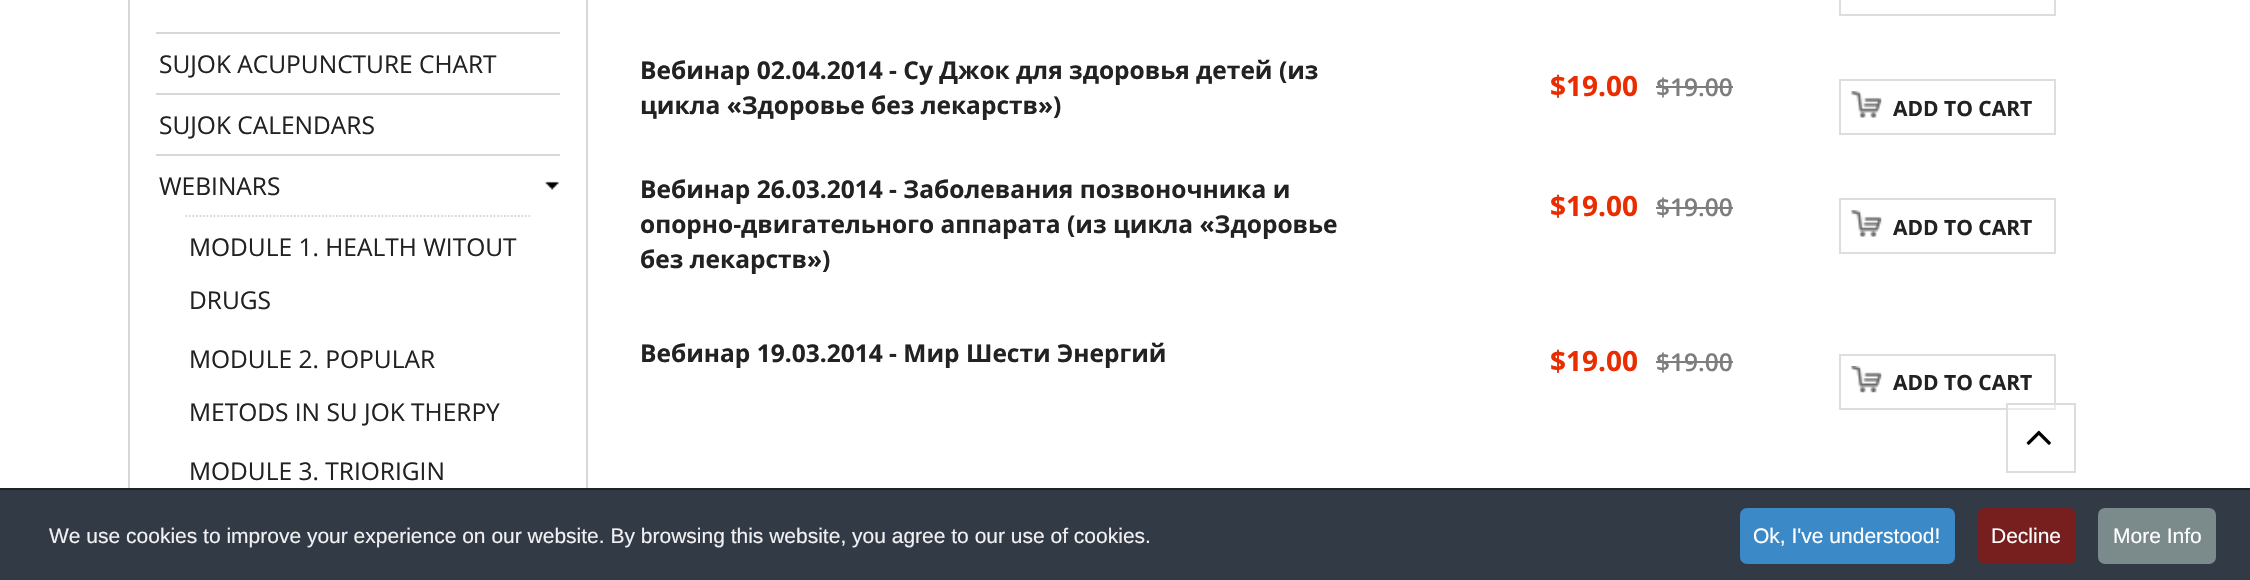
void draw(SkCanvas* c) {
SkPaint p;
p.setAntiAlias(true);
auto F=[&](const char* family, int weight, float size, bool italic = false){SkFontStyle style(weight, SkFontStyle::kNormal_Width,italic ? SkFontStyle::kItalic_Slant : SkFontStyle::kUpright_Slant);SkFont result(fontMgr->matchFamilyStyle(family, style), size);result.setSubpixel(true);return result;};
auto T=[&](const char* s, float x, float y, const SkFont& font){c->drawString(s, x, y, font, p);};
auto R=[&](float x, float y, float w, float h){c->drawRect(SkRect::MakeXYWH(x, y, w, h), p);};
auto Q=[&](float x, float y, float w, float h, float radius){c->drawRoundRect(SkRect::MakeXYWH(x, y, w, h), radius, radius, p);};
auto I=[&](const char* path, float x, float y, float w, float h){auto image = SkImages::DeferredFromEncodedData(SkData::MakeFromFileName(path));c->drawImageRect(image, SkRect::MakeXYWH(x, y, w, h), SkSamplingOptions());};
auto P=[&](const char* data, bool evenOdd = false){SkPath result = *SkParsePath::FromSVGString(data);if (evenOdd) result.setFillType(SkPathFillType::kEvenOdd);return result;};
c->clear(0xffffffff);
p.setStroke(true);
p.setStrokeWidth(2);
p.setColor(0xffd7d7d7);
c->drawRect(SkRect::MakeXYWH(129,-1,458,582),p);
p.setStroke(false);
R(156,32,404,2);
R(156,93,404,2);
auto f1 = F("Open Sans",400,24.5);
p.setColor(0xff222222);
T("SUJOK ACUPUNCTURE CHART",159,73,f1);
p.setColor(0xffd7d7d7);
R(156,154,404,2);
p.setColor(0xff222222);
T("SUJOK CALENDARS",159,134,f1);
T("WEBINARS",159,195,f1);
I("1.png",545,181,14,9);
p.setStroke(true);
p.setStrokeWidth(1.8);
p.setColor(0xffd7d7d7);
p.setPathEffect(SkDashPathEffect::Make({{1.75f,1.75f}}, 0));
c->drawPath(P("M185.5 216h344.5"),p);
p.setPathEffect(nullptr);
p.setStroke(false);
p.setColor(0xff222222);
T("MODULE 1. HEALTH WITOUT",189,256,f1);
T("DRUGS",189,309,f1);
T("MODULE 2. POPULAR",189,368,f1);
T("METODS IN SU JOK THERPY",189,421,f1);
T("MODULE 3. TRIORIGIN",189,480,f1);
p.setStroke(true);
p.setStrokeWidth(2);
p.setColor(0xffdddddd);
c->drawRect(SkRect::MakeXYWH(1840,-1,215,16),p);
auto f2 = F("Open Sans",700,24.5);
p.setStroke(false);
p.setColor(0xff222222);
T("Вебинар 02.04.2014 - Су Джок для здоровья детей (из",640,79,f2);
T("цикла «Здоровье без лекарств»)",640,114,f2);
auto f3 = F("Open Sans",700,28);
p.setColor(0xffe92d00);
T("$19.00",1550,96,f3);
auto f4 = F("Open Sans",600,24.5);
p.setColor(0xff7d7d7d);
T("$19.00",1656,96,f4);
R(1656,86,77,2);
I("2.png",1851,91,31,27);
p.setStroke(true);
p.setColor(0xffdddddd);
c->drawRect(SkRect::MakeXYWH(1840,80,215,54),p);
auto f5 = F("Open Sans",700,21);
p.setStroke(false);
p.setColor(0xff222222);
T("ADD TO CART",1893,116,f5);
T("Вебинар 26.03.2014 - Заболевания позвоночника и",640,198,f2);
T("опорно-двигательного аппарата (из цикла «Здоровье",640,233,f2);
T("без лекарств»)",640,268,f2);
p.setColor(0xffe92d00);
T("$19.00",1550,216,f3);
p.setColor(0xff7d7d7d);
T("$19.00",1656,216,f4);
R(1656,207,77,2);
I("2.png",1851,210,31,27);
p.setStroke(true);
p.setColor(0xffdddddd);
c->drawRect(SkRect::MakeXYWH(1840,199,215,54),p);
p.setStroke(false);
p.setColor(0xff222222);
T("ADD TO CART",1893,235,f5);
T("Вебинар 19.03.2014 - Мир Шести Энергий",640,362,f2);
p.setColor(0xffe92d00);
T("$19.00",1550,371,f3);
p.setColor(0xff7d7d7d);
T("$19.00",1656,371,f4);
R(1656,361,77,2);
I("3.png",1851,366,31,27);
p.setStroke(true);
p.setColor(0xffdddddd);
c->drawRect(SkRect::MakeXYWH(1840,355,215,54),p);
p.setStroke(false);
p.setColor(0xff222222);
T("ADD TO CART",1893,390,f5);
p.setColor(0x66ffffff);
R(2008,405,48,5);
p.setStroke(true);
p.setColor(0xffdddddd);
c->drawRect(SkRect::MakeXYWH(2007,404,68,68),p);
I("4.png",2026,430,25,15);
p.setStroke(false);
p.setColor(0xff323a45);
R(0,490,2250,90);
p.setColor(0xff202226);
R(0,488,2250,2);
auto f6 = F("Liberation Sans",400,21);
p.setColor(0xfff1f1f3);
T("We use cookies to improve your experience on our website. By browsing this website, you agree to our use of cookies.",49,543,f6);
p.setColor(0xff3b89c7);
Q(1740,508,215,56,7);
p.setColor(0xffffffff);
T("Ok, I've understood!",1753,543,f6);
p.setColor(0xff771f1f);
Q(1978,508,98,56,7);
p.setColor(0xffffffff);
T("Decline",1991,543,f6);
p.setColor(0xff7b8a8b);
Q(2098,508,118,56,7);
p.setColor(0xffffffff);
T("More Info",2113,543,f6);
}
